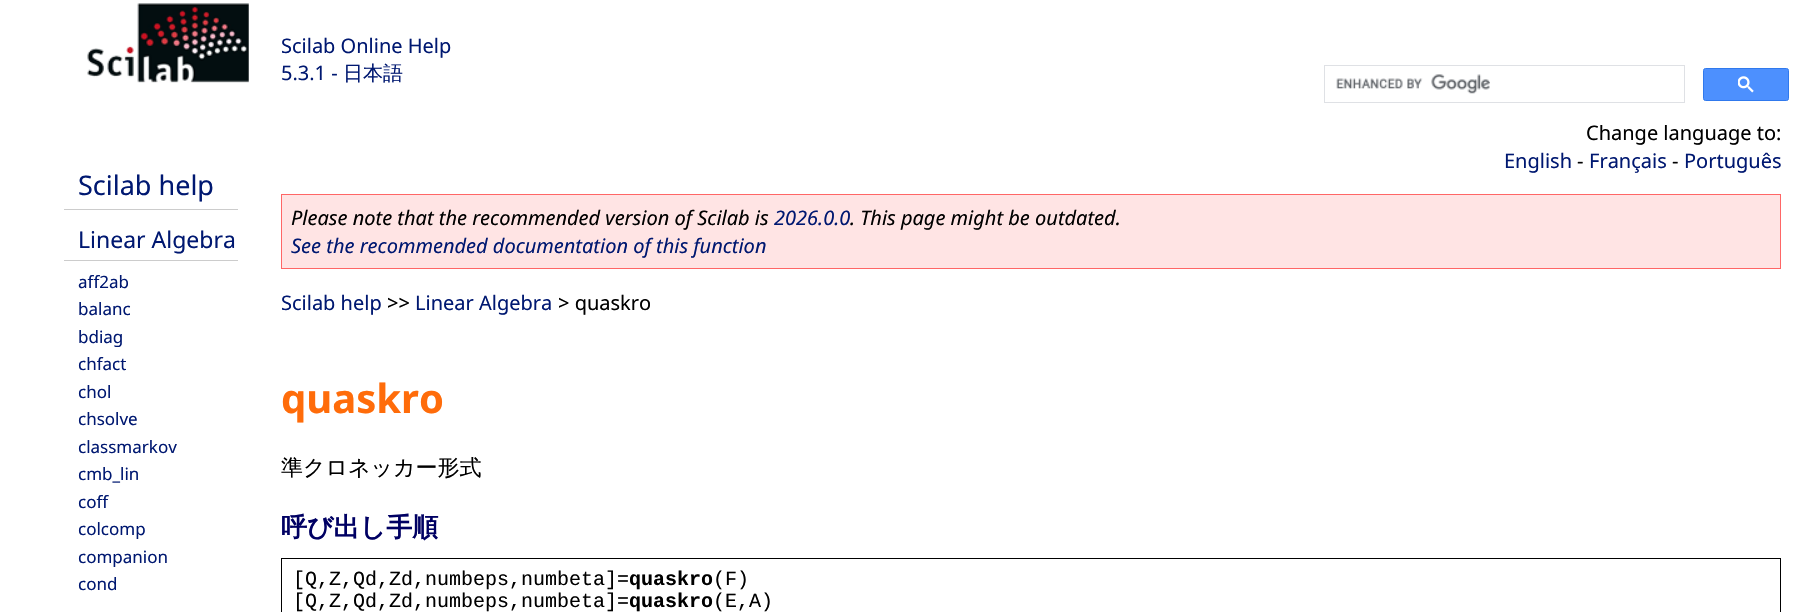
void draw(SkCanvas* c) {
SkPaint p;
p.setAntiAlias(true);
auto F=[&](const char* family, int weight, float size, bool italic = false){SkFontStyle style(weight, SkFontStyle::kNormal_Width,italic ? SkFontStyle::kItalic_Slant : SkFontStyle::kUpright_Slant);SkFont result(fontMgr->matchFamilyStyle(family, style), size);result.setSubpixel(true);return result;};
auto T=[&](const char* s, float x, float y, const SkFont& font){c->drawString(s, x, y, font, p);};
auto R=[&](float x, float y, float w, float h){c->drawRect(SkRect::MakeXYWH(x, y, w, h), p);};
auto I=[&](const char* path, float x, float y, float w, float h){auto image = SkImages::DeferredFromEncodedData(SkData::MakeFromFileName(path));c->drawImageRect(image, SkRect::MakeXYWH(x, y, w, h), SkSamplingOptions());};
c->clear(0xffffffff);
I("1.png",87,3,162,80);
auto f1 = F("Noto Sans",400,20);
p.setColor(0xff001871);
T("Scilab Online Help",281,53,f1);
T("5.3.1 -",281,80,f1);
auto f2 = F("WenQuanYi Zen Hei",500,20);
T("日本語",343,80,f2);
p.setColor(0xff000000);
T("Change language to:",1586,140,f1);
p.setColor(0xffffffff);
R(1600,124,67,1);
p.setStroke(true);
p.setStrokeWidth(1);
p.setColor(0xffdfe1e5);
c->drawRect(SkRect::MakeXYWH(1324.5,65.5,360,37),p);
I("2.png",1336,74,154,20);
p.setStroke(false);
p.setColor(0xff4d90fe);
c->drawRoundRect(SkRect::MakeXYWH(1703.5,68.5,85,32),2,2,p);
p.setStroke(true);
p.setColor(0xff3079ed);
c->drawRoundRect(SkRect::MakeXYWH(1703.5,68.5,85,32),2,2,p);
I("3.png",1738,76,16,17);
p.setStroke(false);
p.setColor(0xffcccccc);
R(64,209,174,1);
auto f3 = F("Noto Sans",400,27);
p.setColor(0xff001871);
T("Scilab help",78,195,f3);
p.setColor(0xffcccccc);
R(64,260,174,1);
auto f4 = F("Noto Sans",400,23);
p.setColor(0xff001871);
T("Linear Algebra",78,248,f4);
auto f5 = F("Noto Sans",400,17);
T("aff2ab",78,288,f5);
T("balanc",78,315,f5);
T("bdiag",78,343,f5);
T("chfact",78,370,f5);
T("chol",78,398,f5);
T("chsolve",78,425,f5);
T("classmarkov",78,453,f5);
T("cmb_lin",78,480,f5);
T("coff",78,508,f5);
T("colcomp",78,535,f5);
T("companion",78,563,f5);
T("cond",78,590,f5);
T("English",1504,168,f1);
p.setColor(0xff000000);
T("-",1577,168,f1);
p.setColor(0xff001871);
T("Français",1589,168,f1);
p.setColor(0xff000000);
T("-",1672,168,f1);
p.setColor(0xff001871);
T("Português",1684,168,f1);
p.setColor(0xffffe4e4);
c->drawRect(SkRect::MakeXYWH(281.5,194.5,1499,74),p);
p.setStroke(true);
p.setColor(0xffff6666);
c->drawRect(SkRect::MakeXYWH(281.5,194.5,1499,74),p);
auto f6 = F("Noto Sans",400,20,true);
p.setStroke(false);
p.setColor(0xff000000);
T("Please note that the recommended version of Scilab is",291,225,f6);
p.setColor(0xff001871);
T("2026.0.0",774,225,f6);
p.setColor(0xff000000);
T(". This page might be outdated.",850,225,f6);
p.setColor(0xff001871);
T("See the recommended documentation of this function",291,253,f6);
T("Scilab help",281,310,f1);
p.setColor(0xff000000);
T(">>",387,310,f1);
p.setColor(0xff001871);
T("Linear Algebra",415,310,f1);
p.setColor(0xff000000);
T("> quaskro",558,310,f1);
auto f7 = F("Noto Sans",700,40);
p.setColor(0xffff6c0a);
T("quaskro",281,413,f7);
auto f8 = F("WenQuanYi Zen Hei",500,22);
p.setColor(0xff000000);
T("準クロネッカー形式",281,475,f8);
auto f9 = F("WenQuanYi Zen Hei",700,26);
p.setColor(0xff000063);
T("呼び出し手順",281,536,f9);
p.setStroke(true);
p.setColor(0xff000000);
c->drawRect(SkRect::MakeXYWH(281.5,558.5,1499,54),p);
auto f10 = F("Liberation Mono",400,20);
p.setStroke(false);
T("[Q,Z,Qd,Zd,numbeps,numbeta]=",293,585,f10);
auto f11 = F("Liberation Mono",700,20);
T("quaskro",629,585,f11);
T("(F)",713,585,f10);
T("[Q,Z,Qd,Zd,numbeps,numbeta]=",293,607,f10);
T("quaskro",629,607,f11);
T("(E,A)",713,607,f10);
}
